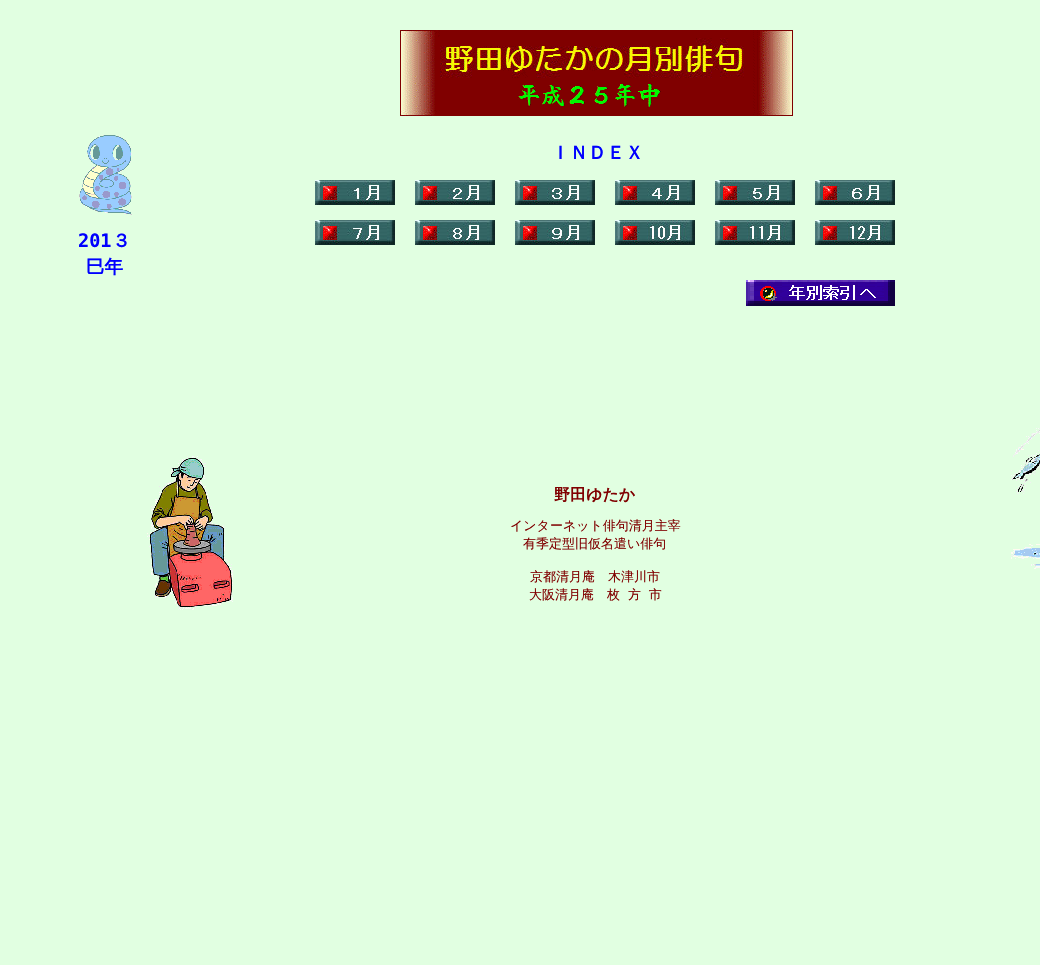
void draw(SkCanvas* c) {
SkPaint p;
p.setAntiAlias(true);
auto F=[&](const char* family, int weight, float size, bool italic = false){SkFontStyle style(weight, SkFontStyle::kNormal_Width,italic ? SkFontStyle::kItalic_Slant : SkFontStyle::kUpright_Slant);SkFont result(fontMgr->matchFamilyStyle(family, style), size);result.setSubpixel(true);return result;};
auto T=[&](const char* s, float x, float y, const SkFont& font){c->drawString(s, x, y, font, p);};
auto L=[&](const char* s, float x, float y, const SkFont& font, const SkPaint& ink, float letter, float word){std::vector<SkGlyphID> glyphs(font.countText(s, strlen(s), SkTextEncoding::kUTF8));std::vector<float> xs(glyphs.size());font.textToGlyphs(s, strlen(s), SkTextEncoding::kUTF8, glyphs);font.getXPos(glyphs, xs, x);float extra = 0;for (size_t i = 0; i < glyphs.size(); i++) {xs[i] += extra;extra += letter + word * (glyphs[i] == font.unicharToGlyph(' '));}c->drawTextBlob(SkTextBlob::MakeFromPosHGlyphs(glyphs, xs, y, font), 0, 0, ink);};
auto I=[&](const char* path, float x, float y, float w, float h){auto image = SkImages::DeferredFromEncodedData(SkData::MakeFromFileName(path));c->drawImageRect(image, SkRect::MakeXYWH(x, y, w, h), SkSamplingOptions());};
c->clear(0xffe1ffe1);
I("1.png",400,30,393,86);
I("2.png",79,135,53,80);
auto f1 = F("WenQuanYi Zen Hei",700,18.5);
p.setColor(0xff0000ff);
T("ＩＮＤＥＸ",551,159,f1);
I("3.png",315,180,80,25);
I("4.png",415,180,80,25);
I("5.png",515,180,80,25);
I("6.png",615,180,80,25);
I("7.png",715,180,80,25);
I("8.png",815,180,80,25);
auto f2 = F("DejaVu Sans Mono",700,18.5);
T("201",78,247,f2);
T("３",112,247,f1);
T("巳年",86,273,f1);
I("9.png",315,220,80,25);
I("10.png",415,220,80,25);
I("11.png",515,220,80,25);
I("12.png",615,220,80,25);
I("13.png",715,220,80,25);
I("14.png",815,220,80,25);
I("15.png",746,280,149,26);
I("16.png",147,456,86,154);
auto f3 = F("WenQuanYi Zen Hei",700,16);
p.setColor(0xff800000);
T("野田ゆたか",554,500,f3);
auto f4 = F("WenQuanYi Zen Hei",500,13);
T("インターネット俳句清月主宰",510,530,f4);
T("有季定型旧仮名遣い俳句",523,548,f4);
T("京都清月庵　木津川市",530,581,f4);
L("大阪清月庵　枚 方 市",529,599,f4,p,0,4);
I("17.png",1011,428,29,141);
}
